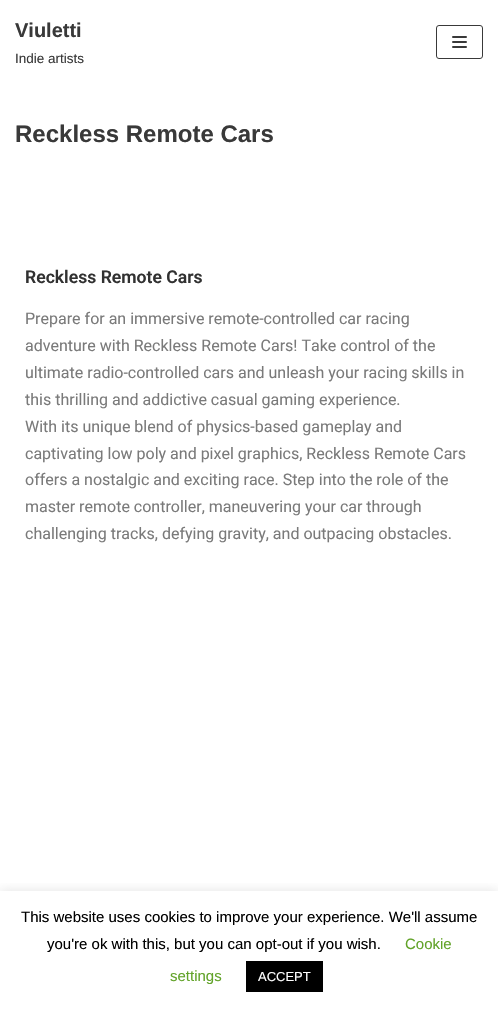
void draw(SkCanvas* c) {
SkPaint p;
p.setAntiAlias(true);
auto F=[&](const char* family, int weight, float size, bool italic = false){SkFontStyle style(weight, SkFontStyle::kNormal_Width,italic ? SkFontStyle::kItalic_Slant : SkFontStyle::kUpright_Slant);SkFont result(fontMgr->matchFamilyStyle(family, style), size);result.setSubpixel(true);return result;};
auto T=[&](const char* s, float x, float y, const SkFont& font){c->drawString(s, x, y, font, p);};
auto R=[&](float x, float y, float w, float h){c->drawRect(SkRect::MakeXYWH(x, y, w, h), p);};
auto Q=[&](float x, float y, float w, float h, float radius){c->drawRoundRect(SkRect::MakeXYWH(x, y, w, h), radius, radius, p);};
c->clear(0xffffffff);
auto f1 = F("Liberation Sans",700,20);
p.setColor(0xff393939);
T("Viuletti",15,37,f1);
auto f2 = F("Liberation Sans",400,13.5);
T("Indie artists",15,63,f2);
p.setStroke(true);
p.setStrokeWidth(1);
c->drawRoundRect(SkRect::MakeXYWH(436.5,25.5,46,33),2.5,2.5,p);
p.setStroke(false);
Q(452,36,15,2,1);
Q(452,41,15,2,1);
Q(452,46,15,2,1);
auto f3 = F("Liberation Sans",700,24);
T("Reckless Remote Cars",15,142,f3);
auto f4 = F("Roboto",600,17.6);
p.setColor(0xff313131);
T("Reckless Remote Cars",25,283,f4);
auto f5 = F("Roboto",400,16);
p.setColor(0xff7a7a7a);
T("Prepare for an immersive remote-controlled car racing",25,324,f5);
T("adventure with Reckless Remote Cars! Take control of the",25,351,f5);
T("ultimate radio-controlled cars and unleash your racing skills in",25,378,f5);
T("this thrilling and addictive casual gaming experience.",25,405,f5);
T("With its unique blend of physics-based gameplay and",25,432,f5);
T("captivating low poly and pixel graphics, Reckless Remote Cars",25,459,f5);
T("offers a nostalgic and exciting race. Step into the role of the",25,485,f5);
T("master remote controller, maneuvering your car through",25,512,f5);
T("challenging tracks, defying gravity, and outpacing obstacles.",25,539,f5);
c->save();
c->clipRect(SkRect::MakeXYWH(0,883,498,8));
p.setColor(0x4dacabab);
p.setMaskFilter(SkMaskFilter::MakeBlur(kNormal_SkBlurStyle, 5));
c->drawRect(SkRect::MakeXYWH(0,890,498,118),p);
p.setMaskFilter(nullptr);
c->restore();
auto f6 = F("Liberation Sans",400,15);
p.setColor(0xff000000);
T("This website uses cookies to improve your experience. We'll assume",21,922,f6);
T("you're ok with this, but you can opt-out if you wish.",47,949,f6);
p.setColor(0xff62a329);
T("Cookie",405,949,f6);
T("settings",170,981,f6);
p.setColor(0xff000000);
R(246,961,77,31);
auto f7 = F("Liberation Sans",400,13);
p.setColor(0xffffffff);
T("ACCEPT",258,981,f7);
}
